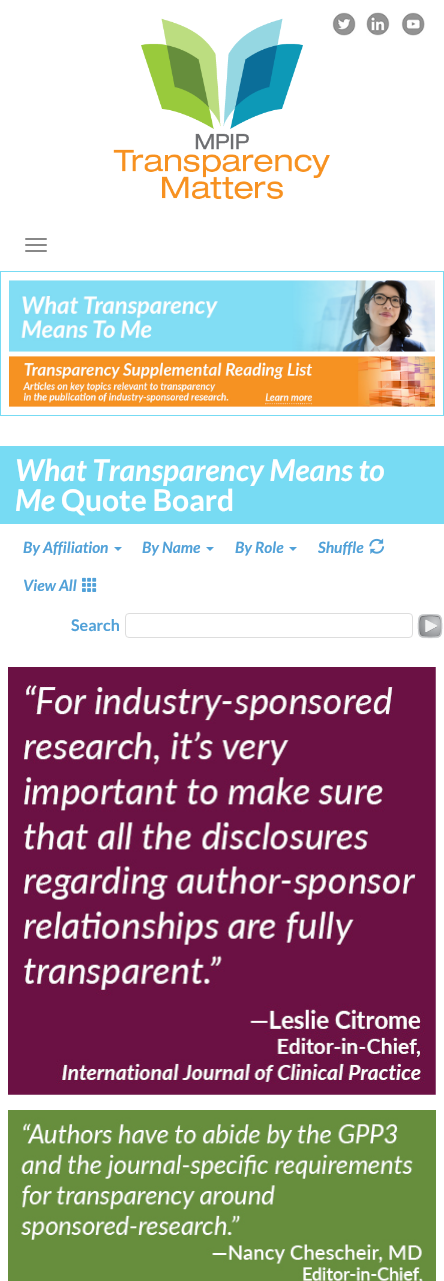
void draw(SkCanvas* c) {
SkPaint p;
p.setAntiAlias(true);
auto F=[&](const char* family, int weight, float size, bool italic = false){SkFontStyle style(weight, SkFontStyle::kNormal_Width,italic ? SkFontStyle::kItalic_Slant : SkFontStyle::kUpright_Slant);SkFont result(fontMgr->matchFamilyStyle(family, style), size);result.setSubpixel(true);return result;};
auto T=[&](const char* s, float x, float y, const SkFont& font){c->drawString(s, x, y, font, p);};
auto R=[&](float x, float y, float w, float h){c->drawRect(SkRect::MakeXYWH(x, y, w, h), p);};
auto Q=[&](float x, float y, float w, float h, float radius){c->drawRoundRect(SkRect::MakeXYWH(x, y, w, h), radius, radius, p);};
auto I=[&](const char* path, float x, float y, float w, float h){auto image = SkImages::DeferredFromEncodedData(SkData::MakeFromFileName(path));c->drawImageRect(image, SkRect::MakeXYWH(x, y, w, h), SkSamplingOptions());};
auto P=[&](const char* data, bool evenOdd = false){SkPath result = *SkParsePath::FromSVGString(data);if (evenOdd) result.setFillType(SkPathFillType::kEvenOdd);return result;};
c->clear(0xffffffff);
I("1.png",113,18,217,181);
I("2.png",332,12,24,24);
I("3.png",366,12,24,24);
I("4.png",401,12,24,24);
p.setColor(0xff888888);
Q(25,238,22,2,1);
Q(25,244,22,2,1);
Q(25,250,22,2,1);
p.setStroke(true);
p.setStrokeWidth(1);
p.setColor(0xff77dbf3);
c->drawRect(SkRect::MakeXYWH(.5,271.5,443,144),p);
I("5.png",9,280,426,72);
I("6.png",9,356,426,51);
p.setStroke(false);
R(0,446,444,78);
auto f1 = F("Lato",700,30,true);
p.setColor(0xffffffff);
T("What Transparency Means to",15,481,f1);
T("Me",15,511,f1);
auto f2 = F("Lato",700,30);
T("Quote Board",61,511,f2);
auto f3 = F("Lato",700,15.5,true);
p.setColor(0xff51a1d8);
T("By Affiliation",23,553,f3);
c->drawPath(P("M114 547h8l-4 4z"),p);
T("By Name",142,553,f3);
c->drawPath(P("M206 547h8l-4 4z"),p);
T("By Role",235,553,f3);
c->drawPath(P("M289 547h8l-4 4z"),p);
T("Shuffle",318,553,f3);
I("7.png",369,538,16,16);
T("View All",23,591,f3);
I("8.png",82,577,15,15);
auto f4 = F("Lato",700,16);
T("Search",71,631,f4);
p.setStroke(true);
p.setColor(0xffdddddd);
c->drawRoundRect(SkRect::MakeXYWH(125.5,613.5,287,24),3.5,3.5,p);
I("9.png",417,614,26,25);
I("10.png",8,667,428,428);
I("11.png",8,1110,428,171);
}
